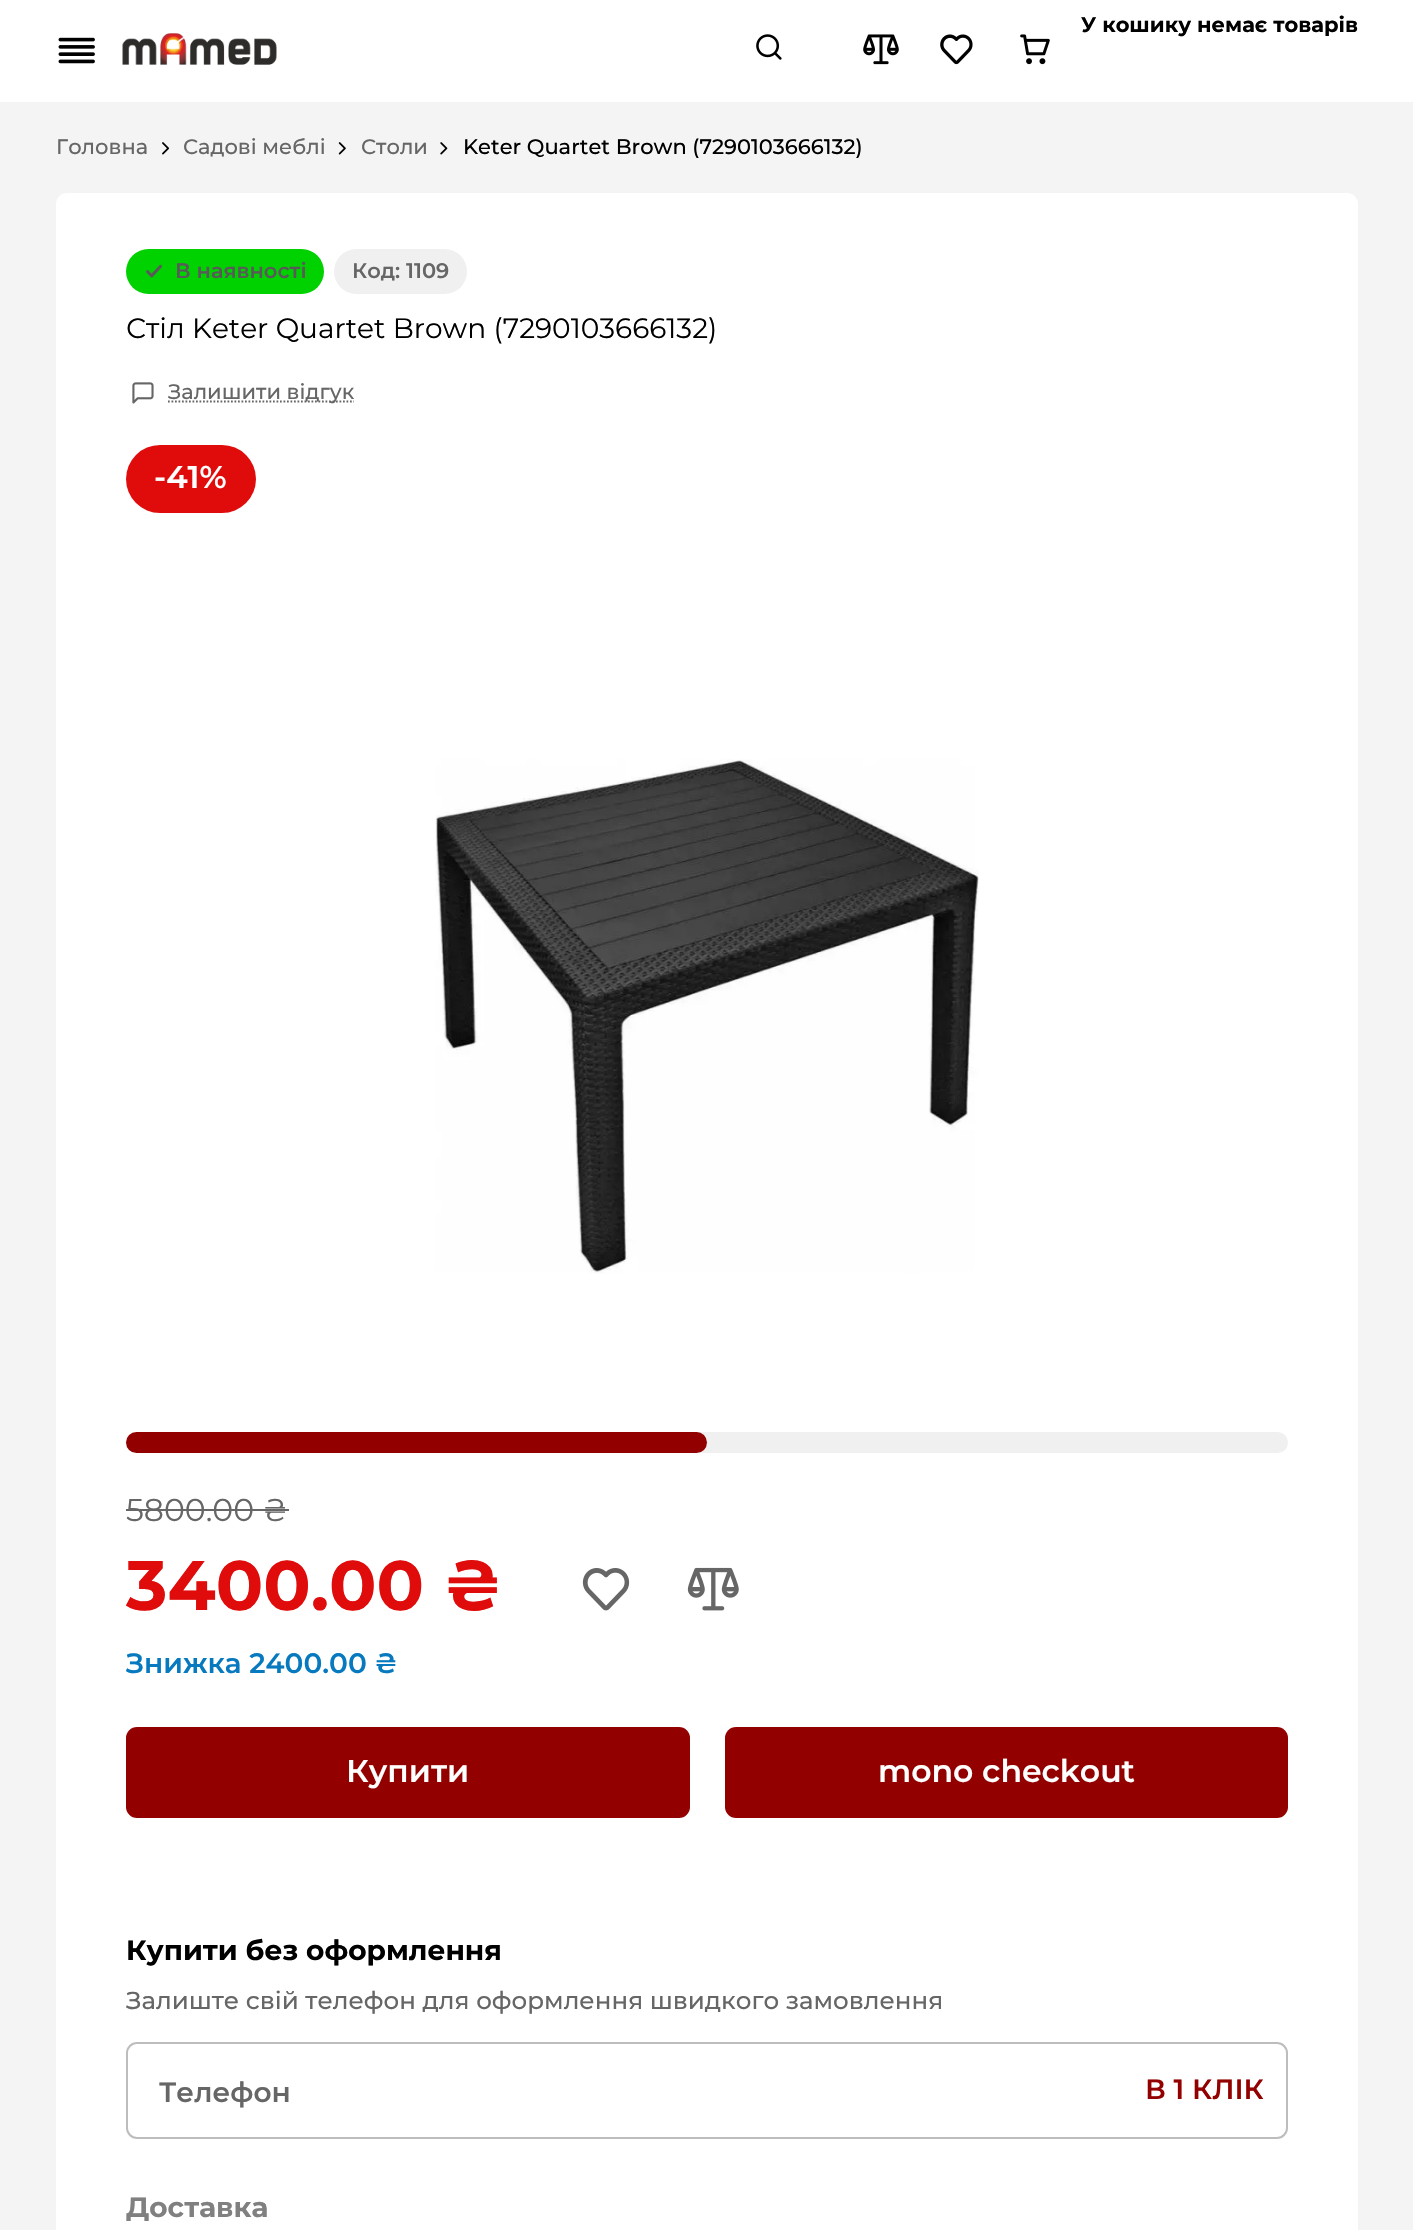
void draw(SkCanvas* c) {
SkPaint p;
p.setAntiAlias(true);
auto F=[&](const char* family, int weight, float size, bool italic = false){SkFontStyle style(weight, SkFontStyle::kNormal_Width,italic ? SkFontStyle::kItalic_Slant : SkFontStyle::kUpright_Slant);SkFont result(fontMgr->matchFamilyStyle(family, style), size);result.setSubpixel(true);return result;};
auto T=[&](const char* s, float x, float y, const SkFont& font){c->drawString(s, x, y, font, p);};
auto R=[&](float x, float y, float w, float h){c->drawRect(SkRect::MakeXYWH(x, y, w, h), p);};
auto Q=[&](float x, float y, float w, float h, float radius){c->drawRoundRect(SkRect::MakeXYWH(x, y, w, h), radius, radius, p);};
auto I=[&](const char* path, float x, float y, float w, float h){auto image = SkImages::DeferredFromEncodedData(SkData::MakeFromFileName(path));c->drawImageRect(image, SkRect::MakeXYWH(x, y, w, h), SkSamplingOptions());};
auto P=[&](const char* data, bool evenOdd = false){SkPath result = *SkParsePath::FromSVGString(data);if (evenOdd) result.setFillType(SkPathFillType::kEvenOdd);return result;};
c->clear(0xfff4f4f4);
p.setColor(0xffffffff);
R(0,0,1413,102);
auto f1 = F("Montserrat",700,21);
p.setColor(0xff000000);
T("У кошику немає товарів",1081,32,f1);
I("1.png",1020,34,30,31);
I("2.png",863,34,36,31);
I("3.png",940,34,33,31);
I("4.png",58,37,37,27);
I("5.png",122,33,155,32);
I("6.png",756,34,26,26);
auto f2 = F("Montserrat",500,21);
p.setColor(0xff666666);
T("Головна",56,154,f2);
I("7.png",162,142,8,13);
T("Садові меблі",183,154,f2);
I("8.png",338,142,8,13);
T("Столи",361,154,f2);
I("9.png",440,142,8,13);
p.setColor(0xff000000);
T("Keter Quartet Brown (7290103666132)",463,154,f2);
p.setColor(0xffffffff);
Q(56,193,1302,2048,11);
p.setColor(0xff00d200);
Q(126,249,198,45,22.5);
I("10.png",146,264,16,14);
auto f3 = F("Montserrat",600,21);
p.setColor(0xff595959);
T("В наявності",175,278,f3);
p.setColor(0xfff0f0f0);
Q(334,249,133,45,22.5);
p.setColor(0xff666666);
T("Код: 1109",352,278,f3);
auto f4 = F("Montserrat",400,28);
p.setColor(0xff000000);
T("Стіл Keter Quartet Brown (7290103666132)",126,338,f4);
I("11.png",132,382,22,22);
p.setStroke(true);
p.setStrokeWidth(1.8);
p.setColor(0xff666666);
p.setPathEffect(SkDashPathEffect::Make({{1.75f,1.75f}}, 0));
c->drawPath(P("M168 401.5h186"),p);
p.setPathEffect(nullptr);
p.setStroke(false);
T("Залишити відгук",168,399,f2);
p.setColor(0xffe00b0b);
Q(126,445,130,68,34);
auto f5 = F("Montserrat",600,31.5);
p.setColor(0xffffffff);
T("-41%",154,488,f5);
I("12.png",435,759,544,515);
p.setColor(0xfff0f0f0);
Q(126,1432,1162,21,10.5);
p.setColor(0xff920100);
Q(126,1432,581,21,10.5);
auto f6 = F("Montserrat",400,31.5);
p.setColor(0xff666666);
T("5800.00 ₴",126,1521,f6);
R(126,1509,163,2);
auto f7 = F("Montserrat",700,70);
p.setColor(0xffe00b0b);
T("3400.00 ₴",126,1610,f7);
I("13.png",582,1568,48,43);
I("14.png",687,1567,52,44);
auto f8 = F("Montserrat",600,28);
p.setColor(0xff0779bf);
T("Знижка 2400.00 ₴",126,1673,f8);
p.setColor(0xff920100);
Q(126,1727,564,91,11);
p.setColor(0xffffffff);
T("Купити",346,1782,f5);
p.setColor(0xff920100);
Q(725,1727,563,91,11);
p.setColor(0xffffffff);
T("mono checkout",878,1782,f5);
auto f9 = F("Montserrat",700,28);
p.setColor(0xff000000);
T("Купити без оформлення",126,1960,f9);
auto f10 = F("Montserrat",500,24.5);
p.setColor(0xff666666);
T("Залиште свій телефон для оформлення швидкого замовлення",126,2009,f10);
p.setStroke(true);
p.setStrokeWidth(2);
p.setColor(0xffbdbdbd);
c->drawRoundRect(SkRect::MakeXYWH(127,2043,1160,95),10,10,p);
p.setStroke(false);
p.setColor(0xffffffff);
Q(128,2044,882,91,11);
p.setColor(0xff666666);
T("Телефон",159,2102,f8);
p.setColor(0xff920100);
T("В 1 КЛІК",1145,2099,f8);
p.setColor(0xff000000);
T("Доставка",126,2217,f9);
p.setColor(0x80ffffff);
Q(126,2188,1162,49,7);
}
